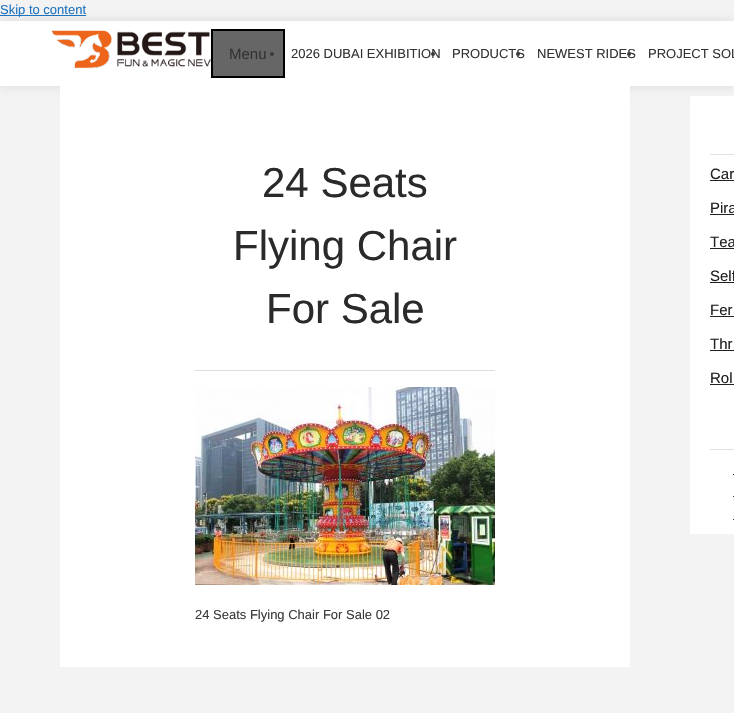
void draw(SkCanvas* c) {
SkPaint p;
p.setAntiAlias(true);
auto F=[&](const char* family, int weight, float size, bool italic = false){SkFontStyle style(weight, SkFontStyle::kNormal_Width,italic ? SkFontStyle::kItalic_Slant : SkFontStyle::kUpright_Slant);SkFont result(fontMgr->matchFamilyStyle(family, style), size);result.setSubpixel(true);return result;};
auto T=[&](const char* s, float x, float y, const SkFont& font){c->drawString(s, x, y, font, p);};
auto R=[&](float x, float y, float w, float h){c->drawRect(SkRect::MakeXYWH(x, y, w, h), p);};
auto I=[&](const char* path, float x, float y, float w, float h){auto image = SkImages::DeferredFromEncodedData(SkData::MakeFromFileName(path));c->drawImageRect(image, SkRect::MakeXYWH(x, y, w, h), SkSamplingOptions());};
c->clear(0xfff3f3f3);
p.setColor(0x1a000000);
p.setMaskFilter(SkMaskFilter::MakeBlur(kNormal_SkBlurStyle, 5));
c->drawRect(SkRect::MakeXYWH(0,21,734,65),p);
p.setMaskFilter(nullptr);
p.setColor(0xff1e73be);
R(0,15,86,1);
auto f1 = F("Liberation Sans",400,13);
T("Skip to content",0,14,f1);
p.setColor(0xffffffff);
R(0,21,734,65);
I("1.png",52,30,159,39);
p.setColor(0xff666666);
c->drawRect(SkRect::MakeXYWH(212,30,72,47),p);
p.setStroke(true);
p.setStrokeWidth(2);
p.setColor(0xff000000);
c->drawRect(SkRect::MakeXYWH(212,30,72,47),p);
auto f2 = F("Liberation Sans",400,15);
p.setStroke(false);
p.setColor(0xff333333);
T("Menu",229,59,f2);
p.setColor(0xff3a3a3a);
c->drawCircle(272,54,2,p);
p.setColor(0xff333333);
T("2026 DUBAI EXHIBITION",291,58,f1);
p.setColor(0xff3a3a3a);
c->drawCircle(433,54,2,p);
p.setColor(0xff333333);
T("PRODUCTS",452,58,f1);
p.setColor(0xff3a3a3a);
c->drawCircle(518,54,2,p);
p.setColor(0xff333333);
T("NEWEST RIDES",537,58,f1);
p.setColor(0xff3a3a3a);
c->drawCircle(629,54,2,p);
p.setColor(0xff333333);
T("PROJECT SOL",648,58,f1);
p.setColor(0xffffffff);
R(60,86,570,581);
p.setColor(0xffdedede);
R(195,370,300,1);
auto f3 = F("Liberation Sans",400,42);
p.setColor(0xff2a2a2a);
T("24 Seats",262,197,f3);
T("Flying Chair",233,260,f3);
T("For Sale",266,323,f3);
I("2.png",195,387,300,198);
p.setColor(0xff3a3a3a);
T("24 Seats Flying Chair For Sale 02",195,619,f1);
p.setColor(0xffffffff);
R(690,96,44,438);
p.setColor(0xffe1e1e1);
R(710,154,24,1);
p.setColor(0xff212121);
T("Car",710,179,f2);
R(710,180,24,1);
T("Pira",710,213,f2);
R(710,214,24,1);
T("Tea",710,247,f2);
R(710,248,24,1);
T("Self",710,281,f2);
R(710,282,24,1);
T("Fer",710,315,f2);
R(710,316,24,1);
T("Thr",710,349,f2);
R(710,350,24,1);
T("Rol",710,383,f2);
R(710,384,24,1);
p.setColor(0xffe1e1e1);
R(710,449,24,1);
p.setColor(0xff333333);
R(733,474,1,1);
R(733,496,1,1);
R(733,519,1,1);
}
